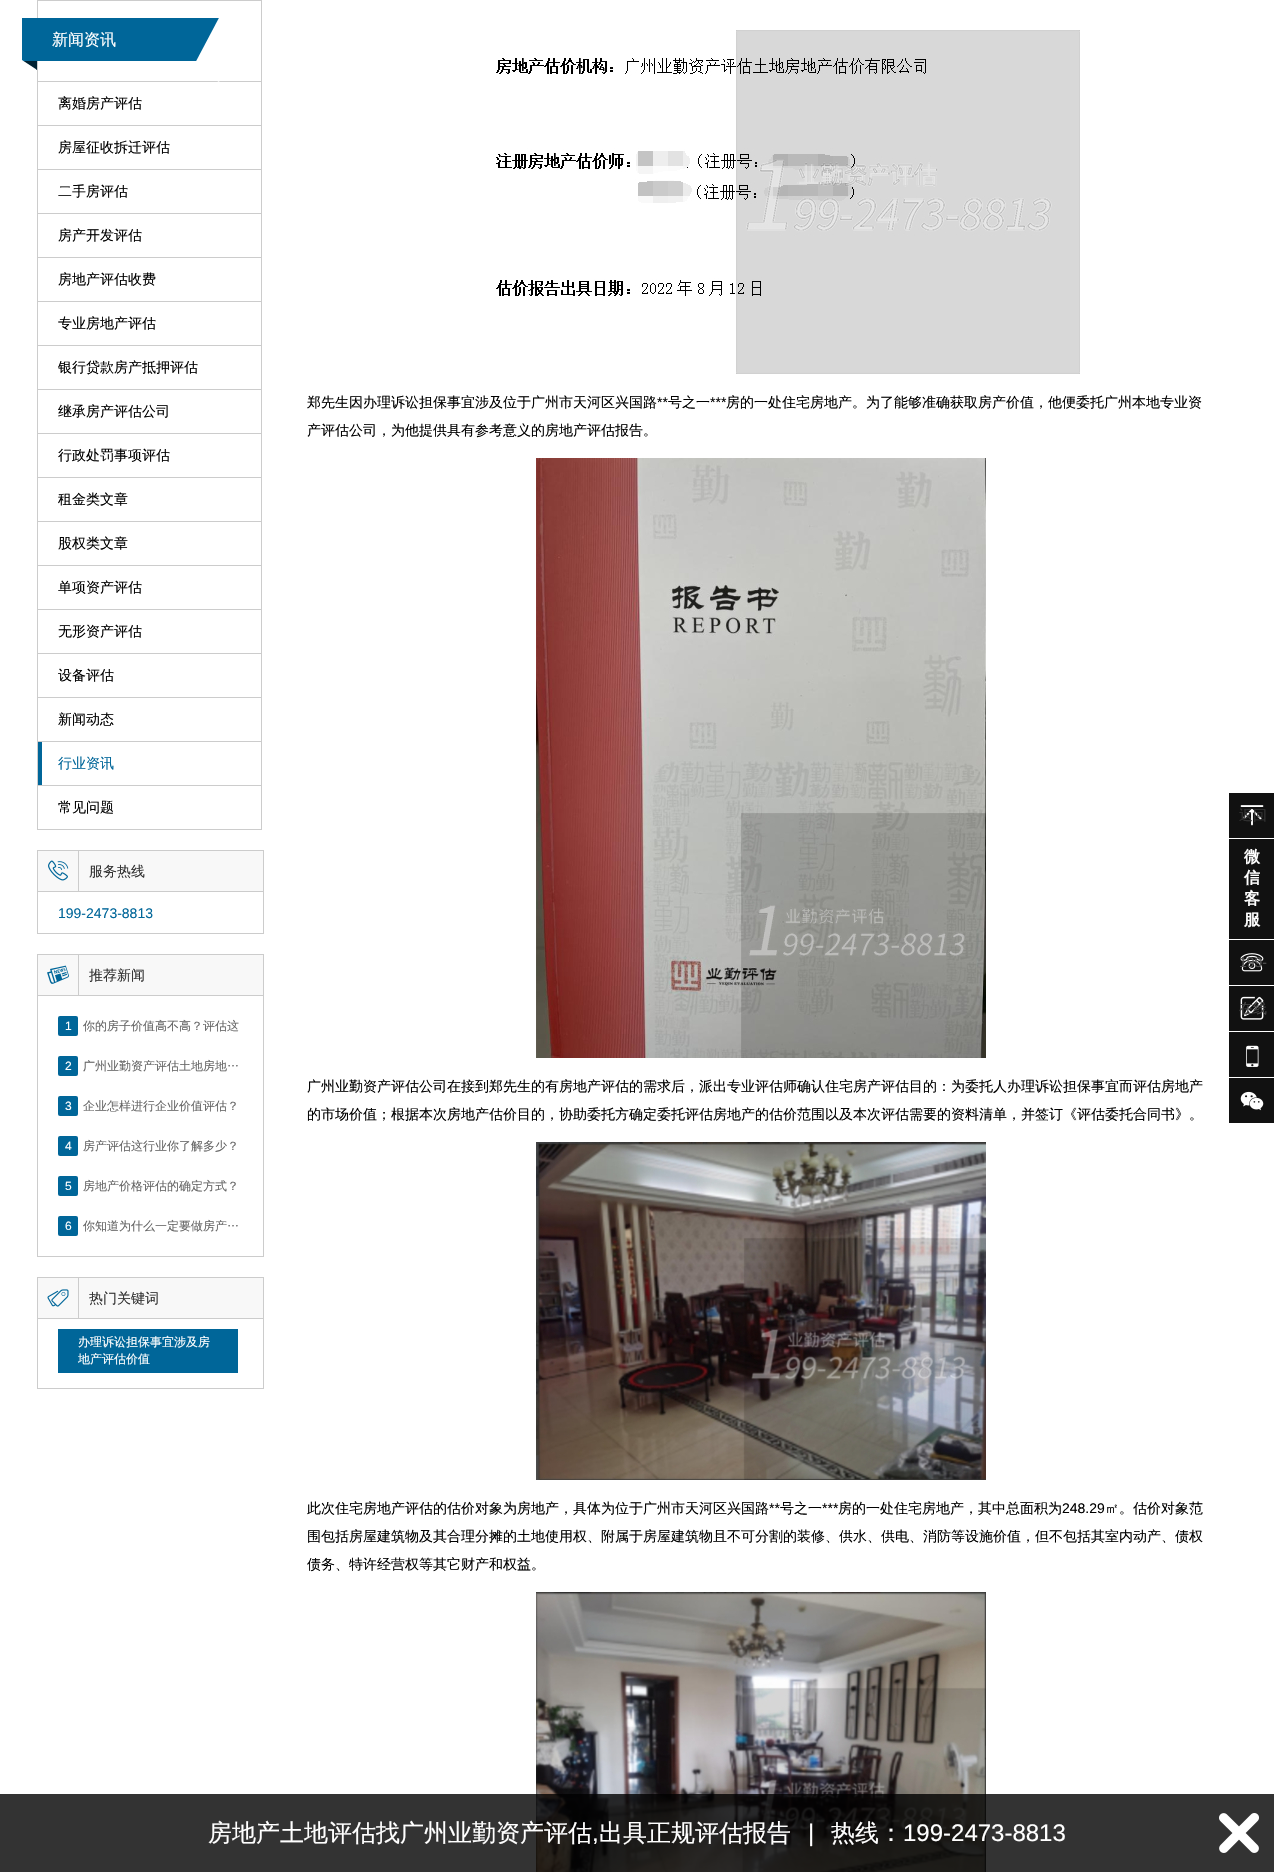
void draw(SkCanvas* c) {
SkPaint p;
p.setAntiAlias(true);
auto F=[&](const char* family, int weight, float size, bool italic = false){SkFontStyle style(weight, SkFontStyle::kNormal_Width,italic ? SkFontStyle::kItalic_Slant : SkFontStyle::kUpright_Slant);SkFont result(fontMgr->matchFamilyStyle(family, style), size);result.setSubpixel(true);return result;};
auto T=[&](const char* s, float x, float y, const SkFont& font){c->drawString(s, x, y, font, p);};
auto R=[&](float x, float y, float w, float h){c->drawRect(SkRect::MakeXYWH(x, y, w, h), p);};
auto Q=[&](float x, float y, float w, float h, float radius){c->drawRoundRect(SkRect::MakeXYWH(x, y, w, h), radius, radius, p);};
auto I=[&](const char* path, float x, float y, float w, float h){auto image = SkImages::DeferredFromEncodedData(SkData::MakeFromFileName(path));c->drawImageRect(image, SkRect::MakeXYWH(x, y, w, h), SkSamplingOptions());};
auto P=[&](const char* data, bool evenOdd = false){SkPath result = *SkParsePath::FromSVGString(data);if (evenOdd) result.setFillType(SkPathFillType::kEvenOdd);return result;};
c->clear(0xffffffff);
p.setStroke(true);
p.setStrokeWidth(1);
p.setColor(0xffcccccc);
c->drawRect(SkRect::MakeXYWH(37.5,.5,224,81),p);
p.setStroke(false);
p.setColor(0xff006699);
R(22,18,197,43);
p.setColor(0xffffffff);
c->drawPath(P("M221 14l26 15l-28 53l-26-15z"),p);
auto f1 = F("WenQuanYi Zen Hei",500,16);
T("新闻资讯",52,45,f1);
p.setColor(0xff002233);
R(23,61,14,9);
p.setColor(0xffffffff);
c->drawPath(P("M22 60l14.5 9.5l-5.5 8.5l-14.5-9.5z"),p);
p.setColor(0xffcccccc);
R(261,82,1,748);
R(37,125,225,1);
R(37,82,1,44);
auto f2 = F("WenQuanYi Zen Hei",500,14);
p.setColor(0xff000000);
T("离婚房产评估",58,108,f2);
p.setColor(0xffcccccc);
R(37,169,225,1);
R(37,126,1,44);
p.setColor(0xff000000);
T("房屋征收拆迁评估",58,152,f2);
p.setColor(0xffcccccc);
R(37,213,225,1);
R(37,170,1,44);
p.setColor(0xff000000);
T("二手房评估",58,196,f2);
p.setColor(0xffcccccc);
R(37,257,225,1);
R(37,214,1,44);
p.setColor(0xff000000);
T("房产开发评估",58,240,f2);
p.setColor(0xffcccccc);
R(37,301,225,1);
R(37,258,1,44);
p.setColor(0xff000000);
T("房地产评估收费",58,284,f2);
p.setColor(0xffcccccc);
R(37,345,225,1);
R(37,302,1,44);
p.setColor(0xff000000);
T("专业房地产评估",58,328,f2);
p.setColor(0xffcccccc);
R(37,389,225,1);
R(37,346,1,44);
p.setColor(0xff000000);
T("银行贷款房产抵押评估",58,372,f2);
p.setColor(0xffcccccc);
R(37,433,225,1);
R(37,390,1,44);
p.setColor(0xff000000);
T("继承房产评估公司",58,416,f2);
p.setColor(0xffcccccc);
R(37,477,225,1);
R(37,434,1,44);
p.setColor(0xff000000);
T("行政处罚事项评估",58,460,f2);
p.setColor(0xffcccccc);
R(37,521,225,1);
R(37,478,1,44);
p.setColor(0xff000000);
T("租金类文章",58,504,f2);
p.setColor(0xffcccccc);
R(37,565,225,1);
R(37,522,1,44);
p.setColor(0xff000000);
T("股权类文章",58,548,f2);
p.setColor(0xffcccccc);
R(37,609,225,1);
R(37,566,1,44);
p.setColor(0xff000000);
T("单项资产评估",58,592,f2);
p.setColor(0xffcccccc);
R(37,653,225,1);
R(37,610,1,44);
p.setColor(0xff000000);
T("无形资产评估",58,636,f2);
p.setColor(0xffcccccc);
R(37,697,225,1);
R(37,654,1,44);
p.setColor(0xff000000);
T("设备评估",58,680,f2);
p.setColor(0xffcccccc);
R(37,741,225,1);
R(37,698,1,44);
p.setColor(0xff000000);
T("新闻动态",58,724,f2);
p.setColor(0xffcccccc);
R(37,785,225,1);
R(37,742,1,44);
p.setColor(0xff006699);
R(38,742,4,43);
T("行业资讯",58,768,f2);
p.setColor(0xffcccccc);
R(37,829,225,1);
R(37,786,1,44);
p.setColor(0xff000000);
T("常见问题",58,812,f2);
p.setStroke(true);
p.setColor(0xffcccccc);
c->drawRect(SkRect::MakeXYWH(37.5,850.5,226,83),p);
p.setStroke(false);
p.setColor(0xfff8f8f8);
R(38,851,225,40);
p.setColor(0xffcccccc);
R(38,891,225,1);
R(78,851,1,40);
I("1.png",48,860,21,21);
p.setColor(0xff333333);
T("服务热线",89,876,f2);
auto f3 = F("Liberation Sans",400,14);
p.setColor(0xff006699);
T("199-2473-8813",58,918,f3);
p.setStroke(true);
p.setColor(0xffcccccc);
c->drawRect(SkRect::MakeXYWH(37.5,954.5,226,302),p);
p.setStroke(false);
p.setColor(0xfff8f8f8);
R(38,955,225,40);
p.setColor(0xffcccccc);
R(38,995,225,1);
R(78,955,1,40);
I("2.png",47,965,22,19);
p.setColor(0xff333333);
T("推荐新闻",89,980,f2);
p.setColor(0xff006699);
Q(58,1016,20,20,2);
auto f4 = F("Liberation Sans",400,12);
p.setColor(0xffffffff);
T("1",65,1030,f4);
auto f5 = F("WenQuanYi Zen Hei",500,12);
p.setColor(0xff666666);
T("你的房子价值高不高？评估这",83,1030,f5);
p.setColor(0xff006699);
Q(58,1056,20,20,2);
p.setColor(0xffffffff);
T("2",65,1070,f4);
p.setColor(0xff666666);
T("广州业勤资产评估土地房地…",83,1070,f5);
p.setColor(0xff006699);
Q(58,1096,20,20,2);
p.setColor(0xffffffff);
T("3",65,1110,f4);
p.setColor(0xff666666);
T("企业怎样进行企业价值评估？",83,1110,f5);
p.setColor(0xff006699);
Q(58,1136,20,20,2);
p.setColor(0xffffffff);
T("4",65,1150,f4);
p.setColor(0xff666666);
T("房产评估这行业你了解多少？",83,1150,f5);
p.setColor(0xff006699);
Q(58,1176,20,20,2);
p.setColor(0xffffffff);
T("5",65,1190,f4);
p.setColor(0xff666666);
T("房地产价格评估的确定方式？",83,1190,f5);
p.setColor(0xff006699);
Q(58,1216,20,20,2);
p.setColor(0xffffffff);
T("6",65,1230,f4);
p.setColor(0xff666666);
T("你知道为什么一定要做房产…",83,1230,f5);
p.setStroke(true);
p.setColor(0xffcccccc);
c->drawRect(SkRect::MakeXYWH(37.5,1277.5,226,111),p);
p.setStroke(false);
p.setColor(0xfff8f8f8);
R(38,1278,225,40);
p.setColor(0xffcccccc);
R(38,1318,225,1);
R(78,1278,1,40);
I("3.png",47,1289,22,18);
p.setColor(0xff333333);
T("热门关键词",89,1303,f2);
p.setColor(0xff006699);
R(58,1329,180,44);
p.setColor(0xffffffff);
T("办理诉讼担保事宜涉及房",78,1346,f5);
T("地产评估价值",78,1363,f5);
I("4.png",496,30,584,344);
p.setColor(0xff000000);
T("郑先生因办理诉讼担保事宜涉及位于广州市天河区兴国路",307,407,f2);
T("**",657,407,f3);
T("号之一",668,407,f2);
T("***",710,407,f3);
T("房的一处住宅房地产。为了能够准确获取房产价值，他便委托广州本地专业资",726,407,f2);
T("产评估公司，为他提供具有参考意义的房地产评估报告。",307,435,f2);
I("5.png",536,458,450,600);
T("广州业勤资产评估公司在接到郑先生的有房地产评估的需求后，派出专业评估师确认住宅房产评估目的：为委托人办理诉讼担保事宜而评估房地产",307,1091,f2);
T("的市场价值；根据本次房地产估价目的，协助委托方确定委托评估房地产的估价范围以及本次评估需要的资料清单，并签订《评估委托合同书》。",307,1119,f2);
I("6.png",536,1142,450,338);
T("此次住宅房地产评估的估价对象为房地产，具体为位于广州市天河区兴国路",307,1513,f2);
T("**",769,1513,f3);
T("号之一",780,1513,f2);
T("***",822,1513,f3);
T("房的一处住宅房地产，其中总面积为",838,1513,f2);
T("248.29",1062,1513,f3);
T("㎡。估价对象范",1105,1513,f2);
T("围包括房屋建筑物及其合理分摊的土地使用权、附属于房屋建筑物且不可分割的装修、供水、供电、消防等设施价值，但不包括其室内动产、债权",307,1541,f2);
T("债务、特许经营权等其它财产和权益。",307,1569,f2);
I("7.png",536,1592,450,280);
p.setColor(0xff111111);
R(1229,793,45,45);
I("8.png",1240,805,24,21);
p.setColor(0xff333333);
T("返回",1239,820,f2);
p.setColor(0xff111111);
R(1229,839,45,100);
auto f6 = F("WenQuanYi Zen Hei",700,16);
p.setColor(0xffffffff);
T("微",1244,862,f6);
T("信",1244,883,f6);
T("客",1244,904,f6);
T("服",1244,925,f6);
p.setColor(0xff111111);
R(1229,940,45,45);
I("9.png",1240,953,24,19);
p.setColor(0xff515151);
T("199-",1239,967,f3);
p.setColor(0xff111111);
R(1229,986,45,45);
I("10.png",1240,996,24,24);
p.setColor(0xff474747);
T("在线",1239,1013,f2);
p.setColor(0xff111111);
R(1229,1032,45,45);
I("11.png",1246,1045,13,22);
R(1229,1078,45,45);
I("12.png",1240,1091,24,20);
p.setColor(0xcc000000);
R(0,1794,1274,78);
auto f7 = F("WenQuanYi Zen Hei",500,24);
p.setColor(0xffffffff);
T("房地产土地评估找广州业勤资产评估",208,1841,f7);
auto f8 = F("Liberation Sans",400,24);
T(",",592,1841,f8);
T("出具正规评估报告",599,1841,f7);
T("|",808,1841,f8);
T("热线：",831,1841,f7);
T("199-2473-8813",903,1841,f8);
I("13.png",1219,1813,40,40);
}
